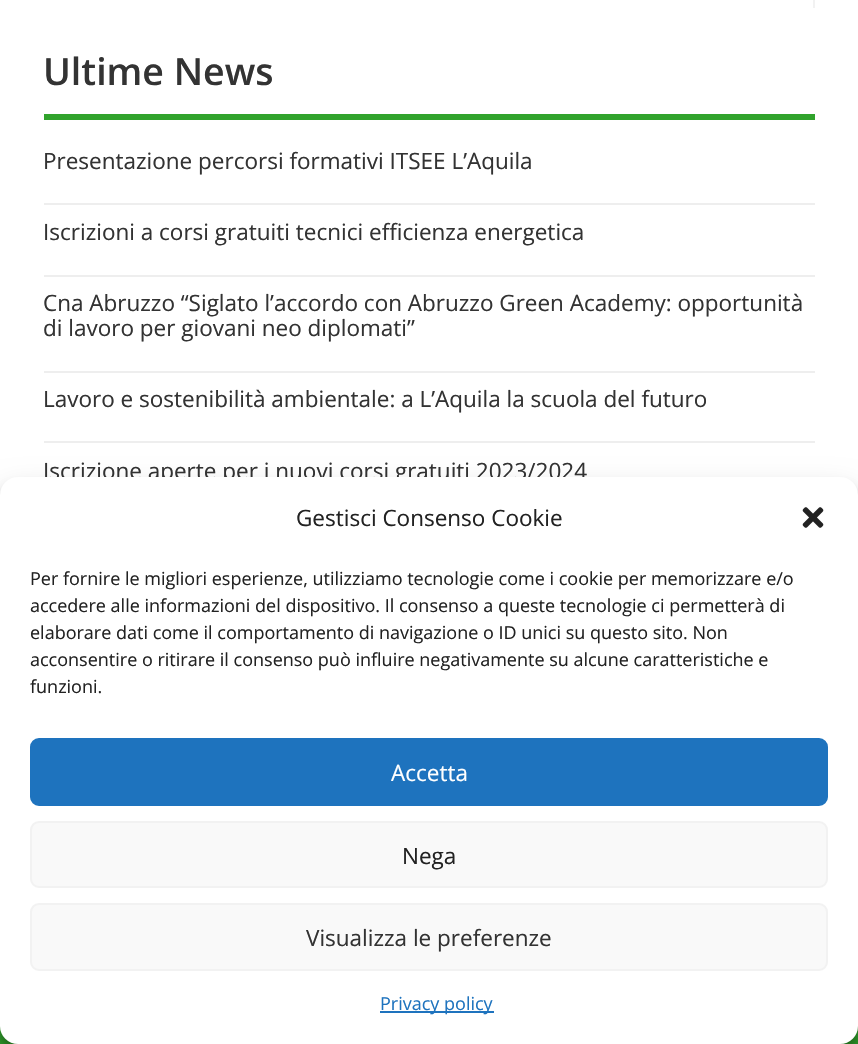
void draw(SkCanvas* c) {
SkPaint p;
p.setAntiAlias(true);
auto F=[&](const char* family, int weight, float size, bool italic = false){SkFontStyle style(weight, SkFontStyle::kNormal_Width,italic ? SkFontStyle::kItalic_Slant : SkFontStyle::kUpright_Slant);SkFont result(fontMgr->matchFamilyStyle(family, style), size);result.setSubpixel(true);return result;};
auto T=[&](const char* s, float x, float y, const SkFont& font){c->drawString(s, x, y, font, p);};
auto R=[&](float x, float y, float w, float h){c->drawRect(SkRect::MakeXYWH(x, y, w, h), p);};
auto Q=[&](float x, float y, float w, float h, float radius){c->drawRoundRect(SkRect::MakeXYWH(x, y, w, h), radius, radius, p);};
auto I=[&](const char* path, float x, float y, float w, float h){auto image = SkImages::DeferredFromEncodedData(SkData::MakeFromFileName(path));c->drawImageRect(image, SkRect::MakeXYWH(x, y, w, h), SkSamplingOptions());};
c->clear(0xffffffff);
p.setColor(0xfff2f2f2);
R(813,0,2,8);
auto f1 = F("Open Sans",600,37.5);
p.setColor(0xff333333);
T("Ultime News",43,85,f1);
p.setColor(0xff31a32c);
R(44,114,771,6);
auto f2 = F("Open Sans",400,22.5);
p.setColor(0xff333333);
T("Presentazione percorsi formativi ITSEE L’Aquila",43,169,f2);
p.setColor(0xffeeeeee);
R(44,203,771,2);
p.setColor(0xff333333);
T("Iscrizioni a corsi gratuiti tecnici efficienza energetica",43,240,f2);
p.setColor(0xffeeeeee);
R(44,275,771,2);
p.setColor(0xff333333);
T("Cna Abruzzo “Siglato l’accordo con Abruzzo Green Academy: opportunità",43,311,f2);
T("di lavoro per giovani neo diplomati”",43,336,f2);
p.setColor(0xffeeeeee);
R(44,371,771,2);
p.setColor(0xff333333);
T("Lavoro e sostenibilità ambientale: a L’Aquila la scuola del futuro",43,407,f2);
p.setColor(0xffeeeeee);
R(44,441,771,2);
p.setColor(0xff333333);
T("Iscrizione aperte per i nuovi corsi gratuiti 2023/2024",43,479,f2);
p.setColor(0xff31a32c);
R(0,1026,858,18);
p.setColor(0x3b000000);
p.setMaskFilter(SkMaskFilter::MakeBlur(kNormal_SkBlurStyle, 4.5));
c->drawRoundRect(SkRect::MakeXYWH(0,486,858,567),18,18,p);
p.setMaskFilter(nullptr);
p.setColor(0x30000000);
p.setMaskFilter(SkMaskFilter::MakeBlur(kNormal_SkBlurStyle, 15));
c->drawRoundRect(SkRect::MakeXYWH(0,492,858,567),18,18,p);
p.setMaskFilter(nullptr);
p.setColor(0xffffffff);
Q(0,477,858,567,18);
p.setColor(0xff222222);
T("Gestisci Consenso Cookie",296,526,f2);
I("1.png",802,507,22,21);
auto f3 = F("Open Sans",400,18);
T("Per fornire le migliori esperienze, utilizziamo tecnologie come i cookie per memorizzare e/o",30,585,f3);
T("accedere alle informazioni del dispositivo. Il consenso a queste tecnologie ci permetterà di",30,612,f3);
T("elaborare dati come il comportamento di navigazione o ID unici su questo sito. Non",30,639,f3);
T("acconsentire o ritirare il consenso può influire negativamente su alcune caratteristiche e",30,666,f3);
T("funzioni.",30,693,f3);
p.setColor(0xff1e73be);
c->drawRoundRect(SkRect::MakeXYWH(31,739,796,66),8,8,p);
p.setStroke(true);
p.setStrokeWidth(2);
c->drawRoundRect(SkRect::MakeXYWH(31,739,796,66),8,8,p);
p.setStroke(false);
p.setColor(0xffffffff);
T("Accetta",391,781,f2);
p.setColor(0xfff9f9f9);
c->drawRoundRect(SkRect::MakeXYWH(31,822,796,65),8,8,p);
p.setStroke(true);
p.setColor(0xfff2f2f2);
c->drawRoundRect(SkRect::MakeXYWH(31,822,796,65),8,8,p);
p.setStroke(false);
p.setColor(0xff222222);
T("Nega",402,864,f2);
p.setColor(0xfff9f9f9);
c->drawRoundRect(SkRect::MakeXYWH(31,904,796,66),8,8,p);
p.setStroke(true);
p.setColor(0xfff2f2f2);
c->drawRoundRect(SkRect::MakeXYWH(31,904,796,66),8,8,p);
p.setStroke(false);
p.setColor(0xff333333);
T("Visualizza le preferenze",306,946,f2);
p.setColor(0xff1e73be);
R(380,1011,114,2);
T("Privacy policy",380,1010,f3);
}
